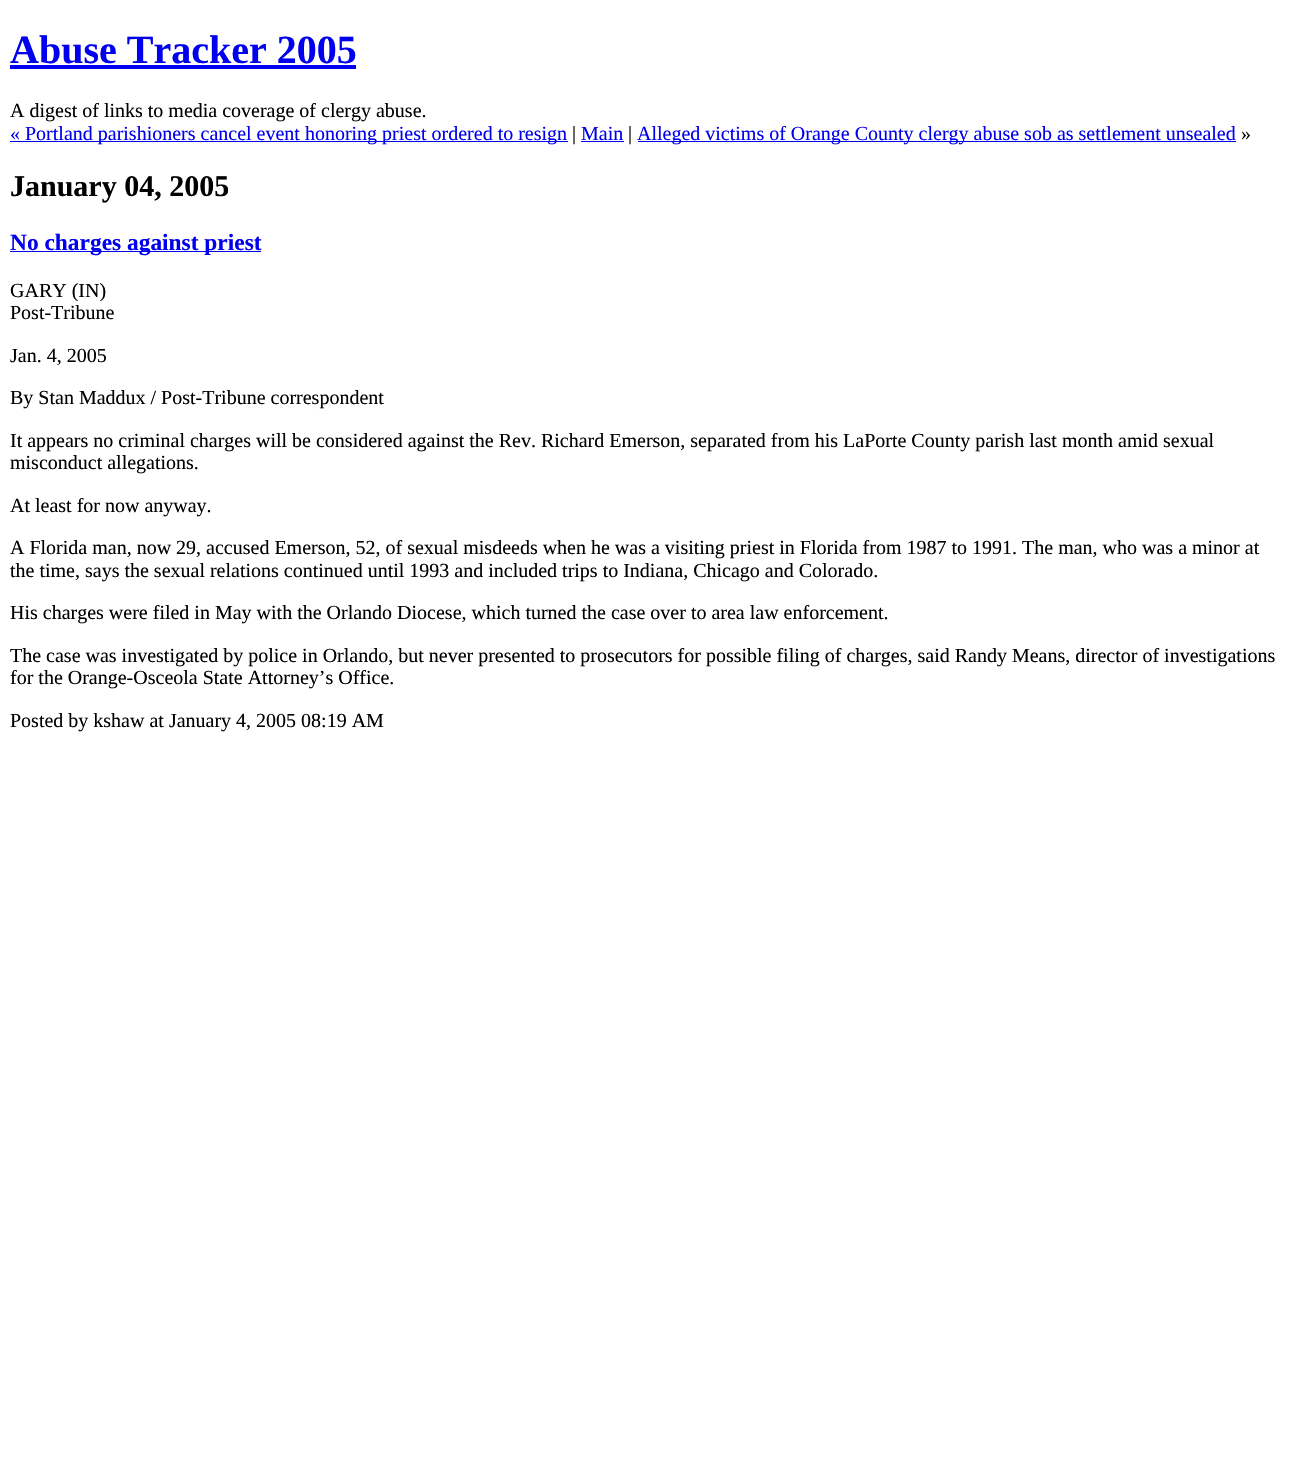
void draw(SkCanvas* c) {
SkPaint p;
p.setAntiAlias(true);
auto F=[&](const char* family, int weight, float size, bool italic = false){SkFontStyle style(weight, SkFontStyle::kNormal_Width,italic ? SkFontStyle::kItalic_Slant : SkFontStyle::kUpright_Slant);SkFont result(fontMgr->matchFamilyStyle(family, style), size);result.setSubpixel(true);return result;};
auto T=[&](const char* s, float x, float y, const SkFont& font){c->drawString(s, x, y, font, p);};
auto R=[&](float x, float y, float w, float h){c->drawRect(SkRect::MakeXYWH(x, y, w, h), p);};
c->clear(0xffffffff);
auto f1 = F("Liberation Serif",700,40);
p.setColor(0xff0000ee);
T("Abuse Tracker 2005",10,63,f1);
R(10,65,346,4);
auto f2 = F("Liberation Serif",400,20);
p.setColor(0xff000000);
T("A digest of links to media coverage of clergy abuse.",10,117,f2);
p.setColor(0xff0000ee);
R(10,141,558,1);
T("« Portland parishioners cancel event honoring priest ordered to resign",10,140,f2);
p.setColor(0xff000000);
T("|",572,140,f2);
p.setColor(0xff0000ee);
T("Main",581,140,f2);
R(581,141,43,1);
p.setColor(0xff000000);
T("|",628,140,f2);
p.setColor(0xff0000ee);
R(638,141,598,1);
T("Alleged victims of Orange County clergy abuse sob as settlement unsealed",637,140,f2);
p.setColor(0xff000000);
T("»",1241,140,f2);
auto f3 = F("Liberation Serif",700,30);
T("January 04, 2005",10,196,f3);
p.setColor(0xff0000ee);
R(10,251,251,1);
auto f4 = F("Liberation Serif",700,23.4);
T("No charges against priest",10,250,f4);
p.setColor(0xff000000);
T("GARY (IN)",10,297,f2);
T("Post-Tribune",10,319,f2);
T("Jan. 4, 2005",10,362,f2);
T("By Stan Maddux / Post-Tribune correspondent",10,404,f2);
T("It appears no criminal charges will be considered against the Rev. Richard Emerson, separated from his LaPorte County parish last month amid sexual",10,447,f2);
T("misconduct allegations.",10,469,f2);
T("At least for now anyway.",10,512,f2);
T("A Florida man, now 29, accused Emerson, 52, of sexual misdeeds when he was a visiting priest in Florida from 1987 to 1991. The man, who was a minor at",10,554,f2);
T("the time, says the sexual relations continued until 1993 and included trips to Indiana, Chicago and Colorado.",10,577,f2);
T("His charges were filed in May with the Orlando Diocese, which turned the case over to area law enforcement.",10,619,f2);
T("The case was investigated by police in Orlando, but never presented to prosecutors for possible filing of charges, said Randy Means, director of investigations",10,662,f2);
T("for the Orange-Osceola State Attorney’s Office.",10,684,f2);
T("Posted by kshaw at January 4, 2005 08:19 AM",10,727,f2);
}
